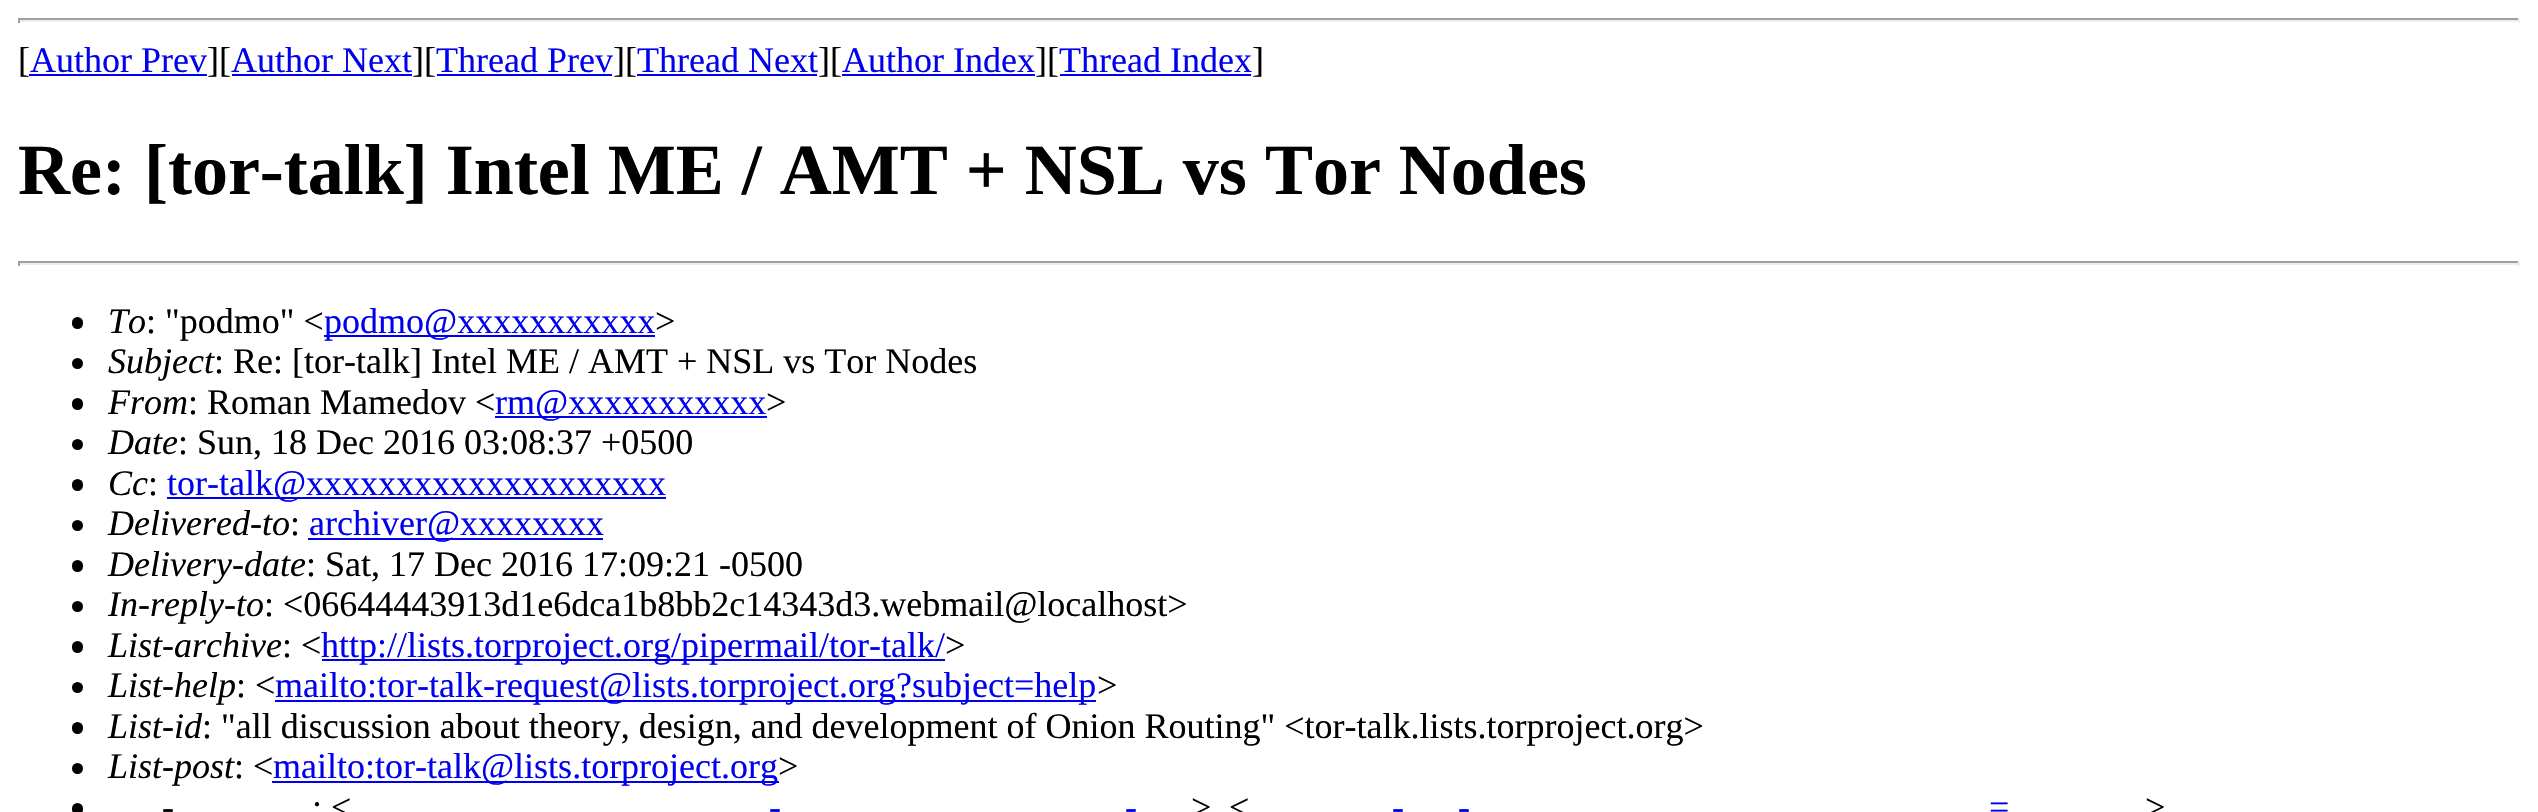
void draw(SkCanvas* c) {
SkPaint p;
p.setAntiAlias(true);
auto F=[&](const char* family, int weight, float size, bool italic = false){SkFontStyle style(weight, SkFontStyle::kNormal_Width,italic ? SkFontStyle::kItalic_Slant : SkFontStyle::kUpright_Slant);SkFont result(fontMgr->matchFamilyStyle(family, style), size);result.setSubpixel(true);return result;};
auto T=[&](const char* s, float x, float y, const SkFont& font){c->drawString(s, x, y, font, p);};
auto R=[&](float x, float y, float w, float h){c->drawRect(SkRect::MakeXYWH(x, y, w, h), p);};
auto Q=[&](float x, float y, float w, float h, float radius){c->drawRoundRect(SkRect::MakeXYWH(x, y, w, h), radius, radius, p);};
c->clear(0xffffffff);
p.setColor(0xff9f9f9f);
R(18,18,2502,2);
p.setColor(0xffeeeeee);
R(2518,18,2,5);
R(18,20,2502,2);
p.setColor(0xff9f9f9f);
R(18,18,2,5);
auto f1 = F("Liberation Serif",400,36);
p.setColor(0xff000000);
T("[",18,72,f1);
p.setColor(0xff0000ee);
T("Author Prev",30,72,f1);
R(29,74,178,2);
p.setColor(0xff000000);
T("][",207,72,f1);
p.setColor(0xff0000ee);
T("Author Next",231,72,f1);
R(232,74,180,2);
p.setColor(0xff000000);
T("][",412,72,f1);
p.setColor(0xff0000ee);
T("Thread Prev",436,72,f1);
R(437,74,175,2);
p.setColor(0xff000000);
T("][",613,72,f1);
p.setColor(0xff0000ee);
T("Thread Next",637,72,f1);
R(637,74,180,2);
p.setColor(0xff000000);
T("][",818,72,f1);
p.setColor(0xff0000ee);
T("Author Index",842,72,f1);
R(842,74,193,2);
p.setColor(0xff000000);
T("][",1035,72,f1);
p.setColor(0xff0000ee);
T("Thread Index",1059,72,f1);
R(1060,74,191,2);
p.setColor(0xff000000);
T("]",1252,72,f1);
auto f2 = F("Liberation Serif",700,72);
T("Re: [tor-talk] Intel ME / AMT + NSL vs Tor Nodes",18,194,f2);
p.setColor(0xff9f9f9f);
R(18,261,2502,2);
p.setColor(0xffeeeeee);
R(2518,261,2,5);
R(18,263,2502,2);
p.setColor(0xff9f9f9f);
R(18,261,2,5);
p.setColor(0xff000000);
Q(72,317,11,12,5.5);
auto f3 = F("Liberation Serif",400,36,true);
T("To",108,333,f3);
T(": \"podmo\" <",146,333,f1);
p.setColor(0xff0000ee);
R(324,335,331,2);
T("podmo@xxxxxxxxxxx",324,333,f1);
p.setColor(0xff000000);
T(">",655,333,f1);
c->drawCircle(77.5,363.5,5.5,p);
T("Subject",108,373,f3);
T(": Re: [tor-talk] Intel ME / AMT + NSL vs Tor Nodes",214,373,f1);
Q(72,398,11,12,5.5);
T("From",108,414,f3);
T(": Roman Mamedov <",188,414,f1);
p.setColor(0xff0000ee);
R(495,416,272,2);
T("rm@xxxxxxxxxxx",495,414,f1);
p.setColor(0xff000000);
T(">",766,414,f1);
c->drawCircle(77.5,444.5,5.5,p);
T("Date",108,454,f3);
T(": Sun, 18 Dec 2016 03:08:37 +0500",178,454,f1);
Q(72,479,11,12,5.5);
T("Cc",108,495,f3);
T(":",148,495,f1);
p.setColor(0xff0000ee);
R(167,497,499,2);
T("tor-talk@xxxxxxxxxxxxxxxxxxxx",167,495,f1);
p.setColor(0xff000000);
c->drawCircle(77.5,525.5,5.5,p);
T("Delivered-to",108,535,f3);
T(":",290,535,f1);
p.setColor(0xff0000ee);
R(308,538,295,2);
T("archiver@xxxxxxxx",309,535,f1);
p.setColor(0xff000000);
Q(72,560,11,12,5.5);
T("Delivery-date",108,576,f3);
T(": Sat, 17 Dec 2016 17:09:21 -0500",306,576,f1);
c->drawCircle(77.5,606.5,5.5,p);
T("In-reply-to",108,616,f3);
T(": <06644443913d1e6dca1b8bb2c14343d3.webmail@localhost>",264,616,f1);
Q(72,641,11,12,5.5);
T("List-archive",108,657,f3);
T(": <",282,657,f1);
p.setColor(0xff0000ee);
R(322,659,623,2);
T("http://lists.torproject.org/pipermail/tor-talk/",321,657,f1);
p.setColor(0xff000000);
T(">",945,657,f1);
c->drawCircle(77.5,687.5,5.5,p);
T("List-help",108,697,f3);
T(": <",236,697,f1);
p.setColor(0xff0000ee);
R(275,700,821,2);
T("mailto:tor-talk-request@lists.torproject.org?subject=help",275,697,f1);
p.setColor(0xff000000);
T(">",1097,697,f1);
Q(72,722,11,12,5.5);
T("List-id",108,738,f3);
T(": \"all discussion about theory, design, and development of Onion Routing\" <tor-talk.lists.torproject.org>",202,738,f1);
c->drawCircle(77.5,768.5,5.5,p);
T("List-post",108,778,f3);
T(": <",234,778,f1);
p.setColor(0xff0000ee);
R(272,781,507,2);
T("mailto:tor-talk@lists.torproject.org",273,778,f1);
p.setColor(0xff000000);
T(">",778,778,f1);
Q(72,803,11,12,5.5);
T("-",162,819,f3);
T(": <",312,819,f1);
p.setColor(0xff0000ee);
T("-",769,819,f1);
T("-",1125,819,f1);
p.setColor(0xff000000);
T(">",1191,819,f1);
T("<",1229,819,f1);
p.setColor(0xff0000ee);
T("-",1392,819,f1);
T("-",1458,819,f1);
T("=",1989,819,f1);
p.setColor(0xff000000);
T(">",2145,819,f1);
}
